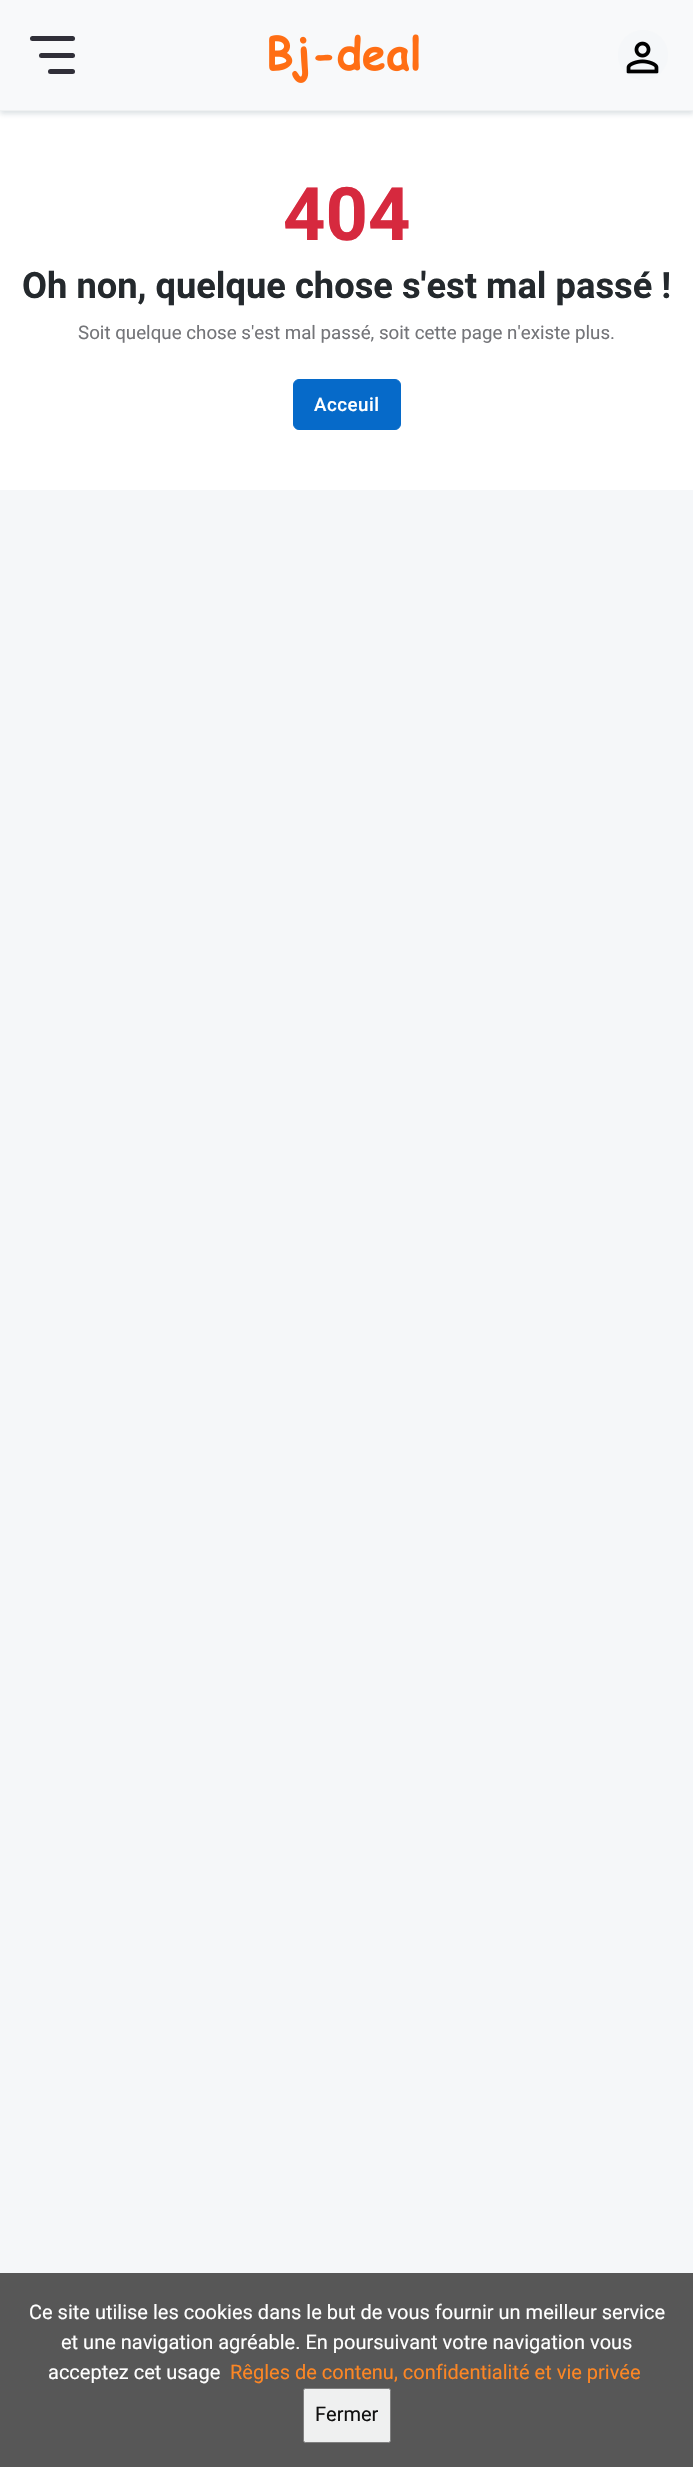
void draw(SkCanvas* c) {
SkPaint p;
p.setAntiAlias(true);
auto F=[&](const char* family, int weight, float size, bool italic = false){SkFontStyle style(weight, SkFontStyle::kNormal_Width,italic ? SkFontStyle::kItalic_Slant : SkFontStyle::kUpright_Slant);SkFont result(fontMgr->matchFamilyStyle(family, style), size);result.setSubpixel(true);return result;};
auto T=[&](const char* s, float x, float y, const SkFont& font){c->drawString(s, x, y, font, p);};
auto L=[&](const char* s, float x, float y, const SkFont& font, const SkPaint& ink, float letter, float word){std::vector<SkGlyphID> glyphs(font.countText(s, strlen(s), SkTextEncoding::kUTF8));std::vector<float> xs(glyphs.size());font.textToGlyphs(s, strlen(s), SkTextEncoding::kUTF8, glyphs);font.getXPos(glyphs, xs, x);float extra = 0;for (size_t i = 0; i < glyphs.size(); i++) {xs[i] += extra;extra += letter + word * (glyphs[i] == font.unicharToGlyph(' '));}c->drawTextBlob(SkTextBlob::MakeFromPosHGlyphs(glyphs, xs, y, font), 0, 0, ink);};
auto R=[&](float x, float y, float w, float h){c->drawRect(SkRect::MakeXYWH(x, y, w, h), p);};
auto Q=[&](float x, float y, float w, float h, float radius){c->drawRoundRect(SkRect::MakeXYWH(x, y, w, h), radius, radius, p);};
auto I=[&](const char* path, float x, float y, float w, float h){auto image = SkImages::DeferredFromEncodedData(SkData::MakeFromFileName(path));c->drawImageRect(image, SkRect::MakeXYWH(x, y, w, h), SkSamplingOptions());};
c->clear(0xfff5f7f9);
p.setColor(0xffffffff);
R(0,111,693,379);
p.setColor(0x261d3a53);
p.setMaskFilter(SkMaskFilter::MakeBlur(kNormal_SkBlurStyle, 2.5));
c->drawRect(SkRect::MakeXYWH(0,3,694,111),p);
p.setMaskFilter(nullptr);
p.setColor(0xffeff1f2);
R(0,110,693,1);
p.setColor(0xfff8f9fa);
R(0,0,693,110);
p.setColor(0xff302f38);
Q(30,36,45,5,2.5);
Q(39,53,36,5,2.5);
Q(48,69,27,5,2.5);
I("1.png",269,34,150,49);
p.setColor(0xfff5f7f9);
c->drawCircle(643,55,25,p);
I("2.png",626,41,33,33);
auto f1 = F("Heebo",700,74);
p.setColor(0xffd6293e);
T("404",283,240,f1);
auto f2 = F("Heebo",700,36.25);
p.setColor(0xff24292d);
T("Oh non, quelque chose s'est mal passé !",22,298,f2);
auto f3 = F("Roboto",400,18.75);
p.setColor(0xff747579);
T("Soit quelque chose s'est mal passé, soit cette page n'existe plus.",78,339,f3);
p.setColor(0xff066ac9);
c->drawRoundRect(SkRect::MakeXYWH(293.5,379.5,107,50),5.5,5.5,p);
p.setStroke(true);
p.setStrokeWidth(1);
c->drawRoundRect(SkRect::MakeXYWH(293.5,379.5,107,50),5.5,5.5,p);
auto f4 = F("Roboto",500,18.75);
p.setStroke(false);
p.setColor(0xffffffff);
L("Acceuil",314,411,f4,p,.5,0);
p.setColor(0xff575757);
R(0,2273,693,194);
auto f5 = F("Roboto",400,20);
p.setColor(0xffffffff);
T("Ce site utilise les cookies dans le but de vous fournir un meilleur service",29,2319,f5);
T("et une navigation agréable. En poursuivant votre navigation vous",61,2349,f5);
T("acceptez cet usage",48,2379,f5);
p.setColor(0xfffc8624);
T("Rêgles de contenu, confidentialité et vie privée",230,2379,f5);
p.setColor(0xffeff0f0);
c->drawRoundRect(SkRect::MakeXYWH(303.5,2388.5,87,54),2,2,p);
p.setStroke(true);
p.setColor(0xff7f7f7f);
c->drawRoundRect(SkRect::MakeXYWH(303.5,2388.5,87,54),2,2,p);
p.setStroke(false);
p.setColor(0xff111111);
T("Fermer",315,2421,f5);
}
